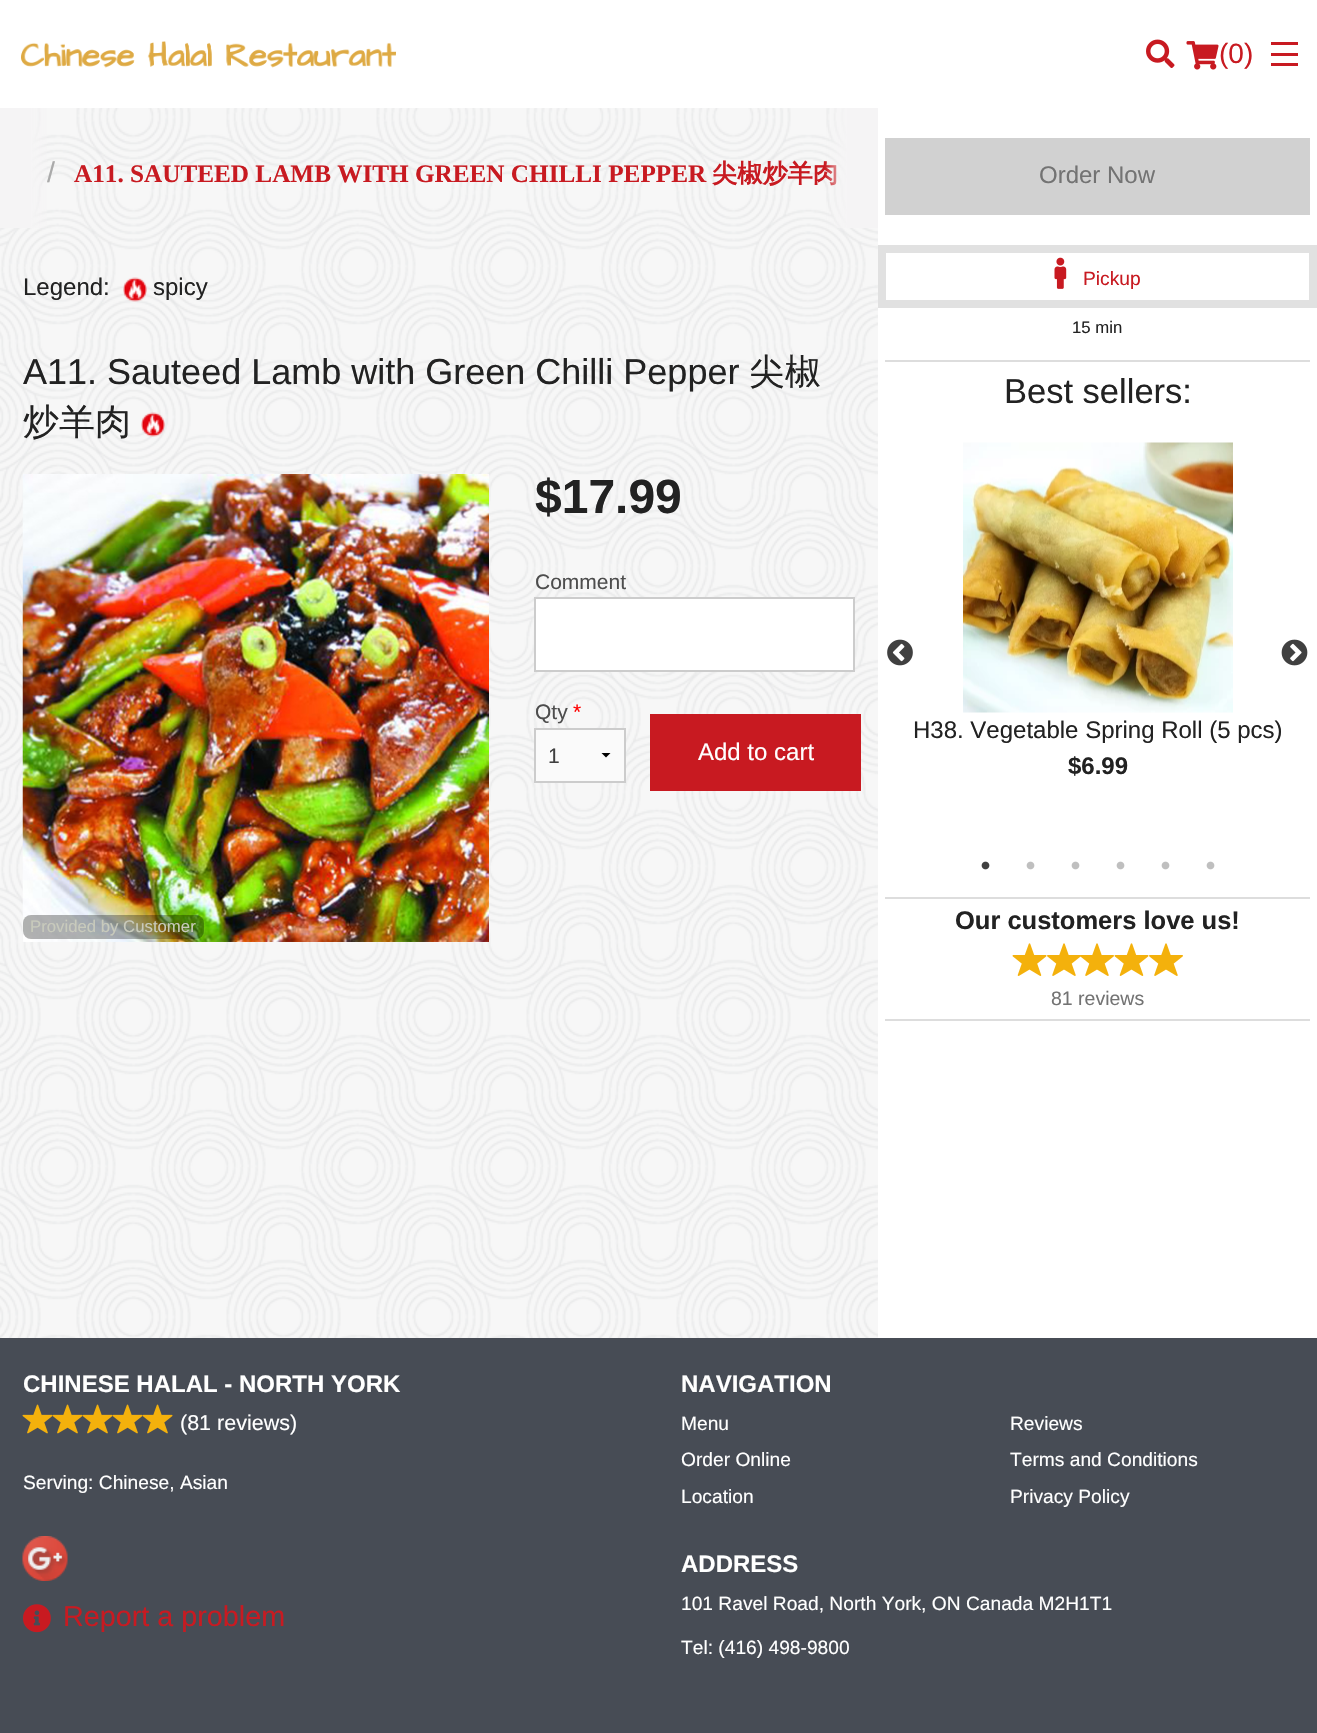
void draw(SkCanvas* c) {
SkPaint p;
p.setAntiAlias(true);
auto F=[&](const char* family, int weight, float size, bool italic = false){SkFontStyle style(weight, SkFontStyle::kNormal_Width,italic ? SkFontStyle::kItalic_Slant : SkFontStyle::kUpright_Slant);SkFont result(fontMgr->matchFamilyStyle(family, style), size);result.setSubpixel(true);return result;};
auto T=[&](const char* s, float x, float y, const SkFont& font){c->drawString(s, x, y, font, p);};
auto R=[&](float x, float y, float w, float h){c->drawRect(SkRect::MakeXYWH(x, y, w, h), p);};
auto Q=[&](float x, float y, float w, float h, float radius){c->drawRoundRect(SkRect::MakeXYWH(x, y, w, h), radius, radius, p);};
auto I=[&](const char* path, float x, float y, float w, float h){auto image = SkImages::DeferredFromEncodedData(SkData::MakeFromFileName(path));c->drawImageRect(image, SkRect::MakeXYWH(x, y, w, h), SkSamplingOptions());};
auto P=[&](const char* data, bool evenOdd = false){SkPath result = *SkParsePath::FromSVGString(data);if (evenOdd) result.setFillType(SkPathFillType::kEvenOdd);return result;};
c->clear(0xffffffff);
I("1.png",0,108,878,1230);
I("2.png",21,41,375,27);
I("3.png",1146,39,29,29);
I("4.png",1186,41,33,29);
auto f1 = F("Liberation Sans",400,28);
p.setColor(0xffc81a21);
T("(0)",1219,63,f1);
R(1271,63,27,3);
R(1271,53,27,3);
R(1271,42,27,3);
{
const SkColor colors[] = {0x00f5f4f5,0xfff5f4f5,0xfff5f4f5};
const float stops[] = {0,.43,1};
const SkPoint ends[] = {{53,168}, {0,168}};
p.setShader(SkGradientShader::MakeLinear(ends, colors, stops, 3, SkTileMode::kClamp));
p.setAlpha(255);
}
R(0,108,47,120);
auto f2 = F("Liberation Sans",400,28.75);
p.setShader(nullptr);
p.setColor(0xffaaaaaa);
T("/",47,182,f2);
auto f3 = F("Liberation Serif",700,25.2);
p.setColor(0xffc81a21);
T("A11. SAUTEED LAMB WITH GREEN CHILLI PEPPER",74,182,f3);
auto f4 = F("WenQuanYi Zen Hei",700,25.2);
T("尖椒炒羊肉",712,182,f4);
{
const SkColor colors[] = {0x00f5f4f5,0xfff5f4f5,0xfff5f4f5};
const float stops[] = {0,.43,1};
const SkPoint ends[] = {{825,168}, {878,168}};
p.setShader(SkGradientShader::MakeLinear(ends, colors, stops, 3, SkTileMode::kClamp));
p.setAlpha(255);
}
R(825,108,53,120);
auto f5 = F("Liberation Sans",400,24);
p.setShader(nullptr);
p.setColor(0xff222222);
T("Legend:",23,295,f5);
I("5.png",123,277,24,25);
T("spicy",153,295,f5);
auto f6 = F("Liberation Sans",400,36);
T("A11. Sauteed Lamb with Green Chilli Pepper",23,384,f6);
auto f7 = F("WenQuanYi Zen Hei",500,36);
T("尖椒",749,384,f7);
T("炒羊肉",23,434,f7);
I("6.png",141,412,24,25);
auto f8 = F("Liberation Sans",700,48);
T("$17.99",535,513,f8);
auto f9 = F("Liberation Sans",400,21);
p.setColor(0xff4d4d4d);
T("Comment",535,589,f9);
p.setColor(0xffffffff);
c->drawRect(SkRect::MakeXYWH(535,598,319,73),p);
p.setStroke(true);
p.setStrokeWidth(2);
p.setColor(0xffcccccc);
c->drawRect(SkRect::MakeXYWH(535,598,319,73),p);
p.setStroke(false);
p.setColor(0xff4d4d4d);
T("Qty",535,719,f9);
p.setColor(0xffff0000);
T("*",573,719,f9);
p.setColor(0xfffafafa);
R(536,730,88,51);
p.setColor(0xff000000);
c->drawPath(P("M610.5 753l-4.5 4.5l-4.5-4.5z"),p);
p.setStroke(true);
p.setColor(0xffcccccc);
c->drawRect(SkRect::MakeXYWH(535,729,90,53),p);
p.setStroke(false);
p.setColor(0xff3f3f3f);
T("1",548,763,f9);
p.setColor(0xffc81a21);
R(650,714,211,77);
p.setColor(0xffffffff);
T("Add to cart",698,760,f5);
I("7.png",22,474,467,468);
p.setColor(0x4d000000);
Q(23,915,181,24,8);
auto f10 = F("Liberation Sans",400,16.75);
p.setColor(0xffc8cabc);
T("Provided by Customer",30,932,f10);
p.setColor(0xffd1d1d1);
R(885,138,425,77);
p.setColor(0xff737373);
T("Order Now",1039,183,f5);
p.setColor(0xffe1e1e1);
R(878,245,439,63);
p.setColor(0xffffffff);
R(886,253,423,47);
I("8.png",1054,257,13,32);
auto f11 = F("Liberation Sans",400,19.2);
p.setColor(0xffc81a21);
T("Pickup",1083,285,f11);
p.setColor(0xff222222);
T("15 min",1072,333,f10);
p.setColor(0xffdddddd);
R(885,360,425,2);
auto f12 = F("Liberation Sans",400,34.5);
p.setColor(0xff222222);
T("Best sellers:",1004,403,f12);
I("9.png",887,639,26,27);
I("10.png",1281,639,27,27);
I("11.png",963,442,270,271);
T("H38. Vegetable Spring Roll (5 pcs)",913,738,f5);
auto f13 = F("Liberation Sans",700,24);
T("$6.99",1068,774,f13);
I("12.png",981,861,9,9);
I("13.png",1026,861,9,9);
I("13.png",1071,861,9,9);
I("13.png",1116,861,9,9);
I("13.png",1161,861,9,9);
I("13.png",1206,861,9,9);
p.setColor(0xffdddddd);
R(885,897,425,2);
auto f14 = F("Liberation Sans",700,25.5);
p.setColor(0xff222222);
T("Our customers love us!",955,929,f14);
I("14.png",1012,943,35,33);
I("15.png",1047,943,34,33);
I("16.png",1080,943,34,33);
I("14.png",1114,943,35,33);
I("15.png",1149,943,34,33);
auto f15 = F("Liberation Sans",400,19.5);
p.setColor(0xff737373);
T("81 reviews",1051,1005,f15);
p.setColor(0xffdddddd);
R(885,1019,425,2);
p.setColor(0xff474c55);
R(0,1338,1317,395);
p.setColor(0xffffffff);
T("CHINESE HALAL - NORTH YORK",23,1392,f13);
I("17.png",22,1404,31,30);
I("18.png",52,1404,31,30);
I("18.png",82,1404,31,30);
I("18.png",112,1404,31,30);
I("18.png",142,1404,31,30);
auto f16 = F("Liberation Sans",400,21.5);
T("(81 reviews)",180,1430,f16);
T("Serving: Chinese, Asian",23,1489,f11);
I("19.png",22,1536,46,45);
I("20.png",23,1604,28,29);
p.setColor(0xffc81a21);
T("Report a problem",63,1626,f2);
p.setColor(0xffffffff);
T("NAVIGATION",681,1392,f13);
T("Menu",681,1430,f11);
T("Order Online",681,1466,f11);
T("Location",681,1503,f11);
T("Reviews",1010,1430,f11);
T("Terms and Conditions",1010,1466,f11);
T("Privacy Policy",1010,1503,f11);
T("ADDRESS",681,1572,f13);
T("101 Ravel Road, North York, ON Canada M2H1T1",681,1610,f11);
T("Tel: (416) 498-9800",681,1654,f11);
}
